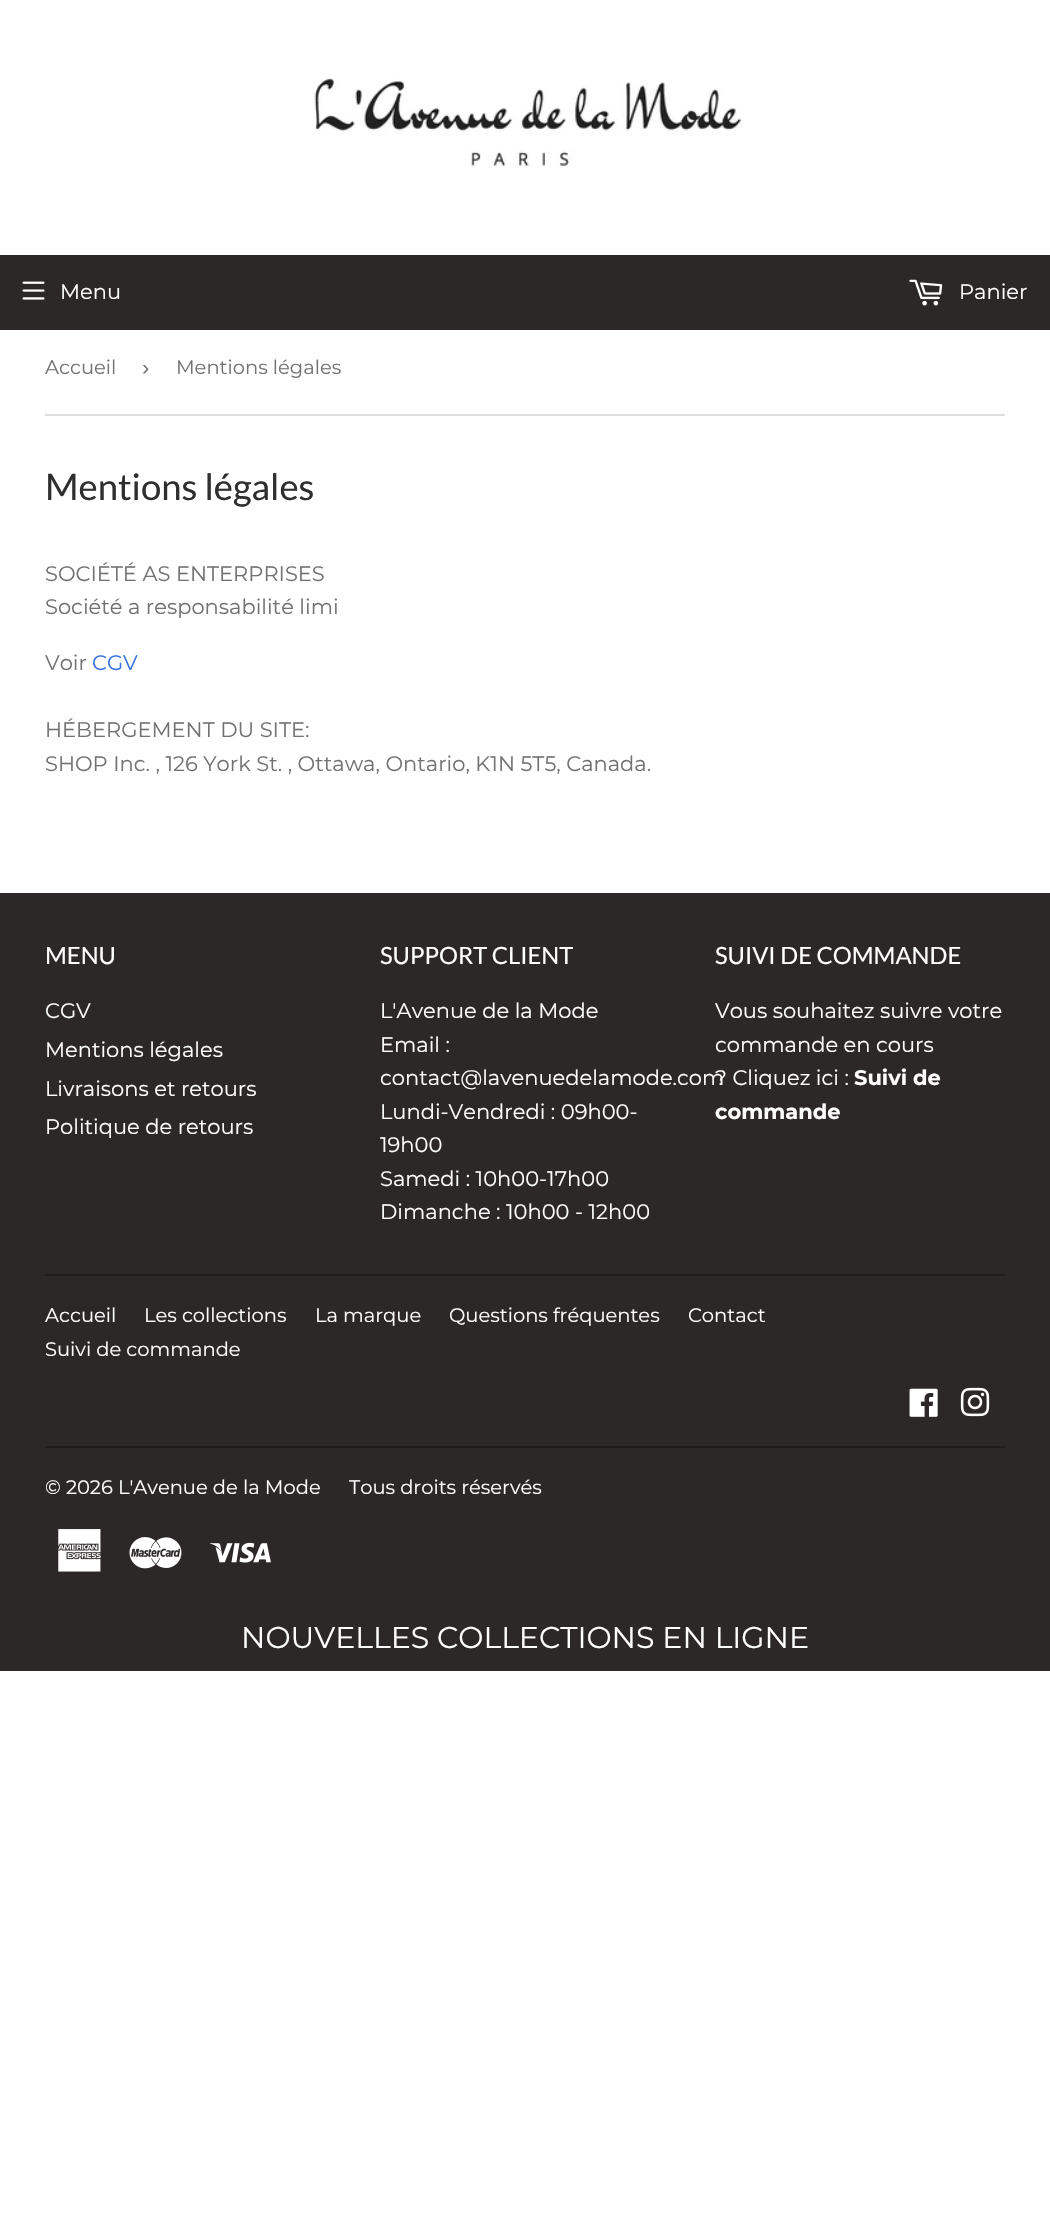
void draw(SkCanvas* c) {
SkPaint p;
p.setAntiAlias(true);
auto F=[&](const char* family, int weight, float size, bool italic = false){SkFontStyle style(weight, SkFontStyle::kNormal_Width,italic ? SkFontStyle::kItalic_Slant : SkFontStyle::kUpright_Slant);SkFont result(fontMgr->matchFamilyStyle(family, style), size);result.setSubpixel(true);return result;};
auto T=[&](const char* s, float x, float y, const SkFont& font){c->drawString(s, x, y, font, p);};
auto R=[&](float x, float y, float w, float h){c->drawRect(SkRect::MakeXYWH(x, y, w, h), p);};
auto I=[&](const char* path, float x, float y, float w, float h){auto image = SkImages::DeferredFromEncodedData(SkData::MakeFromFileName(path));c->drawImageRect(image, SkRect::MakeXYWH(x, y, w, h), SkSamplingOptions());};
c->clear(0xffffffff);
I("1.png",314,78,429,90);
p.setColor(0xff2b2827);
R(0,255,1050,75);
I("2.png",22,281,23,19);
auto f1 = F("Montserrat",400,21);
p.setColor(0xffffffff);
T("Menu",60,299,f1);
I("3.png",909,279,34,27);
T("Panier",959,299,f1);
p.setColor(0xffdedede);
R(45,414,960,2);
auto f2 = F("Montserrat",400,19.5);
p.setColor(0xff727272);
T("Accueil",45,374,f2);
auto f3 = F("Liberation Sans",400,22);
T("›",142,375,f3);
T("Mentions légales",176,374,f2);
auto f4 = F("Lato",400,36.5);
p.setColor(0xff2f2f2f);
T("Mentions légales",45,500,f4);
p.setColor(0xff727272);
T("SOCIÉTÉ AS ENTERPRISES",45,581,f1);
T("Société a responsabilité limi",45,614,f1);
T("Voir",45,670,f1);
p.setColor(0xff3671de);
T("CGV",92,670,f1);
p.setColor(0xff727272);
T("HÉBERGEMENT DU SITE:",45,737,f1);
T("SHOP Inc. , 126 York St. , Ottawa, Ontario, K1N 5T5, Canada.",45,771,f1);
p.setColor(0xff2b2827);
R(0,893,1050,778);
auto f5 = F("Lato",400,23.75);
p.setColor(0xffffffff);
T("MENU",45,964,f5);
T("CGV",45,1018,f1);
T("Mentions légales",45,1057,f1);
T("Livraisons et retours",45,1096,f1);
T("Politique de retours",45,1134,f1);
T("SUPPORT CLIENT",380,964,f5);
T("L'Avenue de la Mode",380,1018,f1);
T("Email :",380,1052,f1);
T("contact@lavenuedelamode.com",380,1085,f1);
T("Lundi-Vendredi : 09h00-",380,1119,f1);
T("19h00",380,1152,f1);
T("Samedi : 10h00-17h00",380,1186,f1);
T("Dimanche : 10h00 - 12h00",380,1219,f1);
T("SUIVI DE COMMANDE",715,964,f5);
T("Vous souhaitez suivre votre",715,1018,f1);
T("commande en cours",715,1052,f1);
T("? Cliquez ici :",715,1085,f1);
auto f6 = F("Montserrat",700,21);
T("Suivi de",854,1085,f6);
T("commande",715,1119,f6);
p.setColor(0xff1e1c1b);
R(45,1274,960,2);
p.setColor(0xffffffff);
T("Accueil",45,1322,f2);
T("Les collections",144,1322,f2);
T("La marque",315,1322,f2);
T("Questions fréquentes",449,1322,f2);
T("Contact",688,1322,f2);
T("Suivi de commande",45,1356,f2);
I("4.png",909,1388,29,29);
I("5.png",960,1387,30,30);
p.setColor(0xff1e1c1b);
R(45,1446,960,2);
p.setColor(0xffffffff);
T("© 2026 L'Avenue de la Mode",45,1494,f2);
T("Tous droits réservés",349,1494,f2);
I("6.png",58,1529,43,43);
I("7.png",129,1537,53,32);
I("8.png",210,1542,61,21);
auto f7 = F("Montserrat",400,30);
T("NOUVELLES COLLECTIONS EN LIGNE",241,1648,f7);
}
